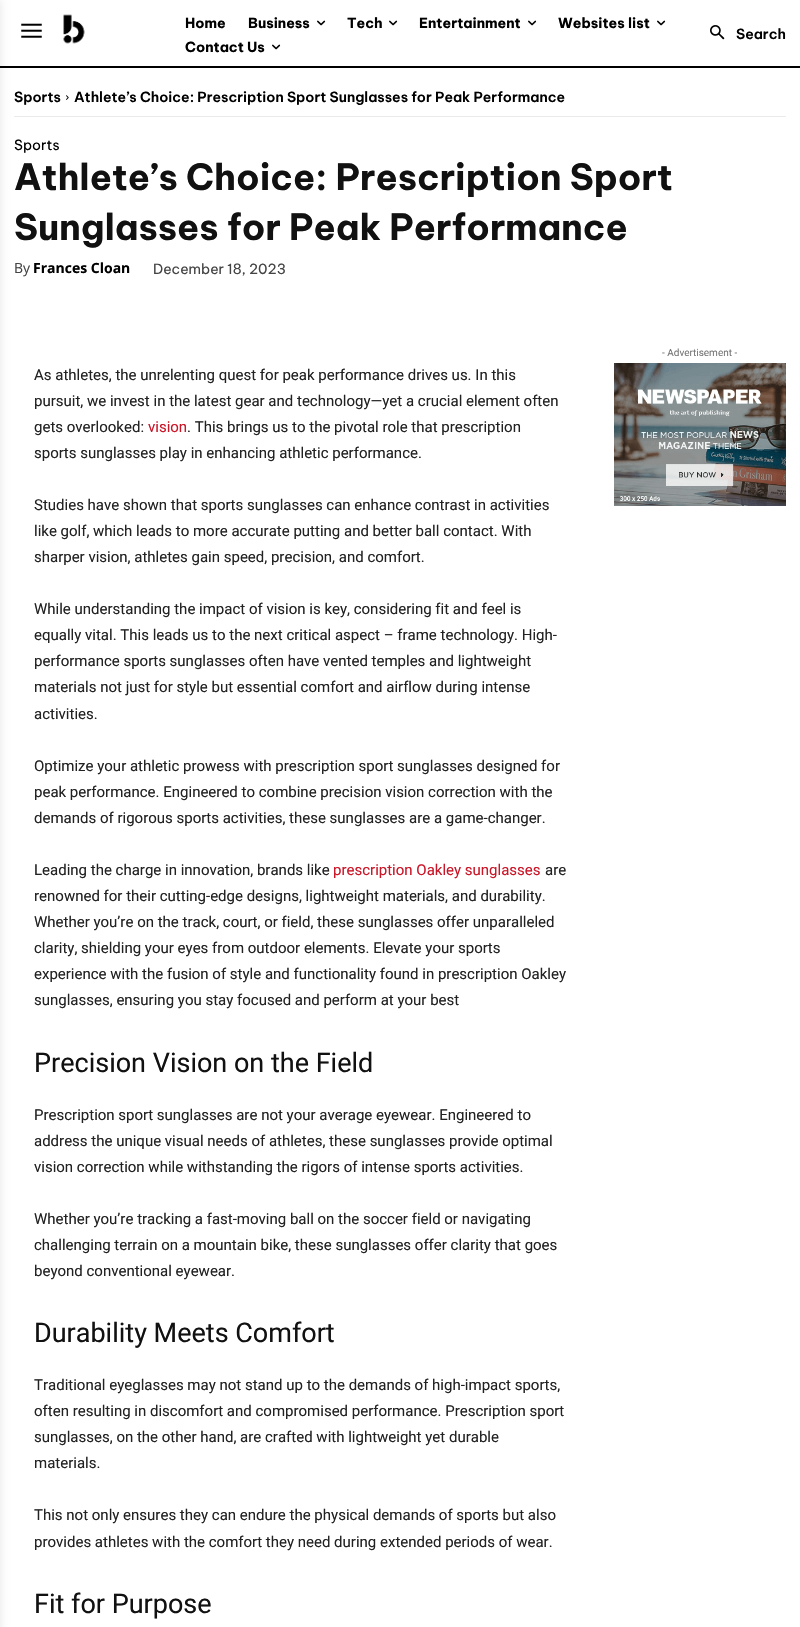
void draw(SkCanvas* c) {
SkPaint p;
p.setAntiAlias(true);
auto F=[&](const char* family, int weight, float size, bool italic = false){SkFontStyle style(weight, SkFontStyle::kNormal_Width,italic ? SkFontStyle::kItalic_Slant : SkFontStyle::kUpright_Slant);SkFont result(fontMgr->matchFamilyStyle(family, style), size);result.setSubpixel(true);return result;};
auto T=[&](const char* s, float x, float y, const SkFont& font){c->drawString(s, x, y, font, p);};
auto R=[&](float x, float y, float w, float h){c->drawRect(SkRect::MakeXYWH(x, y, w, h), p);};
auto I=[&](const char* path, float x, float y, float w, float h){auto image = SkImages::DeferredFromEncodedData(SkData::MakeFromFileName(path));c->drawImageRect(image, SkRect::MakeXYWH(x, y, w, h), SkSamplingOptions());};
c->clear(0xffffffff);
p.setColor(0xff000000);
R(0,66,800,2);
p.setColor(0xffebebeb);
R(14,116,772,1);
p.setColor(0x1a000000);
p.setMaskFilter(SkMaskFilter::MakeBlur(kNormal_SkBlurStyle, 5));
c->drawRect(SkRect::MakeXYWH(-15,0,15,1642),p);
p.setMaskFilter(nullptr);
I("1.png",21,23,21,15);
I("2.png",63,14,22,30);
auto f1 = F("Be Vietnam Pro",700,14);
p.setColor(0xff000000);
T("Home",185,28,f1);
T("Business",248,28,f1);
I("3.png",317,20,9,6);
T("Tech",347,28,f1);
I("3.png",389,20,9,6);
T("Entertainment",419,28,f1);
I("3.png",528,20,9,6);
T("Websites list",558,28,f1);
I("3.png",657,20,9,6);
T("Contact Us",185,52,f1);
I("3.png",272,44,9,6);
I("4.png",710,25,15,15);
auto f2 = F("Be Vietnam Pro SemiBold",600,14);
T("Search",736,39,f2);
T("Sports",14,102,f2);
I("5.png",66,95,3,5);
T("Athlete’s Choice: Prescription Sport Sunglasses for Peak Performance",74,102,f2);
auto f3 = F("Be Vietnam Pro",400,14);
T("Sports",14,150,f3);
auto f4 = F("Be Vietnam Pro",700,36);
p.setColor(0xff111111);
T("Athlete’s Choice: Prescription Sport",14,190,f4);
T("Sunglasses for Peak Performance",14,240,f4);
auto f5 = F("Open Sans",400,14);
p.setColor(0xff444444);
T("By",14,273,f5);
auto f6 = F("Open Sans",700,14);
p.setColor(0xff000000);
T("Frances Cloan",33,273,f6);
p.setColor(0xff444444);
T("December 18, 2023",153,274,f3);
auto f7 = F("Roboto",400,10);
p.setColor(0xff767676);
T("- Advertisement -",662,356,f7);
I("6.png",614,363,172,143);
auto f8 = F("Roboto",400,15);
p.setColor(0xff222222);
T("As athletes, the unrelenting quest for peak performance drives us. In this",34,380,f8);
T("pursuit, we invest in the latest gear and technology—yet a crucial element often",34,406,f8);
T("gets overlooked:",34,432,f8);
p.setColor(0xffcb1628);
T("vision",148,432,f8);
p.setColor(0xff222222);
T(". This brings us to the pivotal role that prescription",187,432,f8);
T("sports sunglasses play in enhancing athletic performance.",34,458,f8);
T("Studies have shown that sports sunglasses can enhance contrast in activities",34,510,f8);
T("like golf, which leads to more accurate putting and better ball contact. With",34,536,f8);
T("sharper vision, athletes gain speed, precision, and comfort.",34,562,f8);
T("While understanding the impact of vision is key, considering fit and feel is",34,614,f8);
T("equally vital. This leads us to the next critical aspect – frame technology. High-",34,640,f8);
T("performance sports sunglasses often have vented temples and lightweight",34,666,f8);
T("materials not just for style but essential comfort and airflow during intense",34,692,f8);
T("activities.",34,719,f8);
T("Optimize your athletic prowess with prescription sport sunglasses designed for",34,771,f8);
T("peak performance. Engineered to combine precision vision correction with the",34,797,f8);
T("demands of rigorous sports activities, these sunglasses are a game-changer.",34,823,f8);
T("Leading the charge in innovation, brands like",34,875,f8);
p.setColor(0xffcb1628);
T("prescription Oakley sunglasses",333,875,f8);
p.setColor(0xff222222);
T("are",545,875,f8);
T("renowned for their cutting-edge designs, lightweight materials, and durability.",34,901,f8);
T("Whether you’re on the track, court, or field, these sunglasses offer unparalleled",34,927,f8);
T("clarity, shielding your eyes from outdoor elements. Elevate your sports",34,953,f8);
T("experience with the fusion of style and functionality found in prescription Oakley",34,979,f8);
T("sunglasses, ensuring you stay focused and perform at your best",34,1005,f8);
auto f9 = F("Roboto",400,27);
p.setColor(0xff111111);
T("Precision Vision on the Field",34,1072,f9);
p.setColor(0xff222222);
T("Prescription sport sunglasses are not your average eyewear. Engineered to",34,1120,f8);
T("address the unique visual needs of athletes, these sunglasses provide optimal",34,1146,f8);
T("vision correction while withstanding the rigors of intense sports activities.",34,1172,f8);
T("Whether you’re tracking a fast-moving ball on the soccer field or navigating",34,1224,f8);
T("challenging terrain on a mountain bike, these sunglasses offer clarity that goes",34,1250,f8);
T("beyond conventional eyewear.",34,1276,f8);
p.setColor(0xff111111);
T("Durability Meets Comfort",34,1342,f9);
p.setColor(0xff222222);
T("Traditional eyeglasses may not stand up to the demands of high-impact sports,",34,1390,f8);
T("often resulting in discomfort and compromised performance. Prescription sport",34,1416,f8);
T("sunglasses, on the other hand, are crafted with lightweight yet durable",34,1442,f8);
T("materials.",34,1468,f8);
T("This not only ensures they can endure the physical demands of sports but also",34,1520,f8);
T("provides athletes with the comfort they need during extended periods of wear.",34,1547,f8);
p.setColor(0xff111111);
T("Fit for Purpose",34,1613,f9);
}
